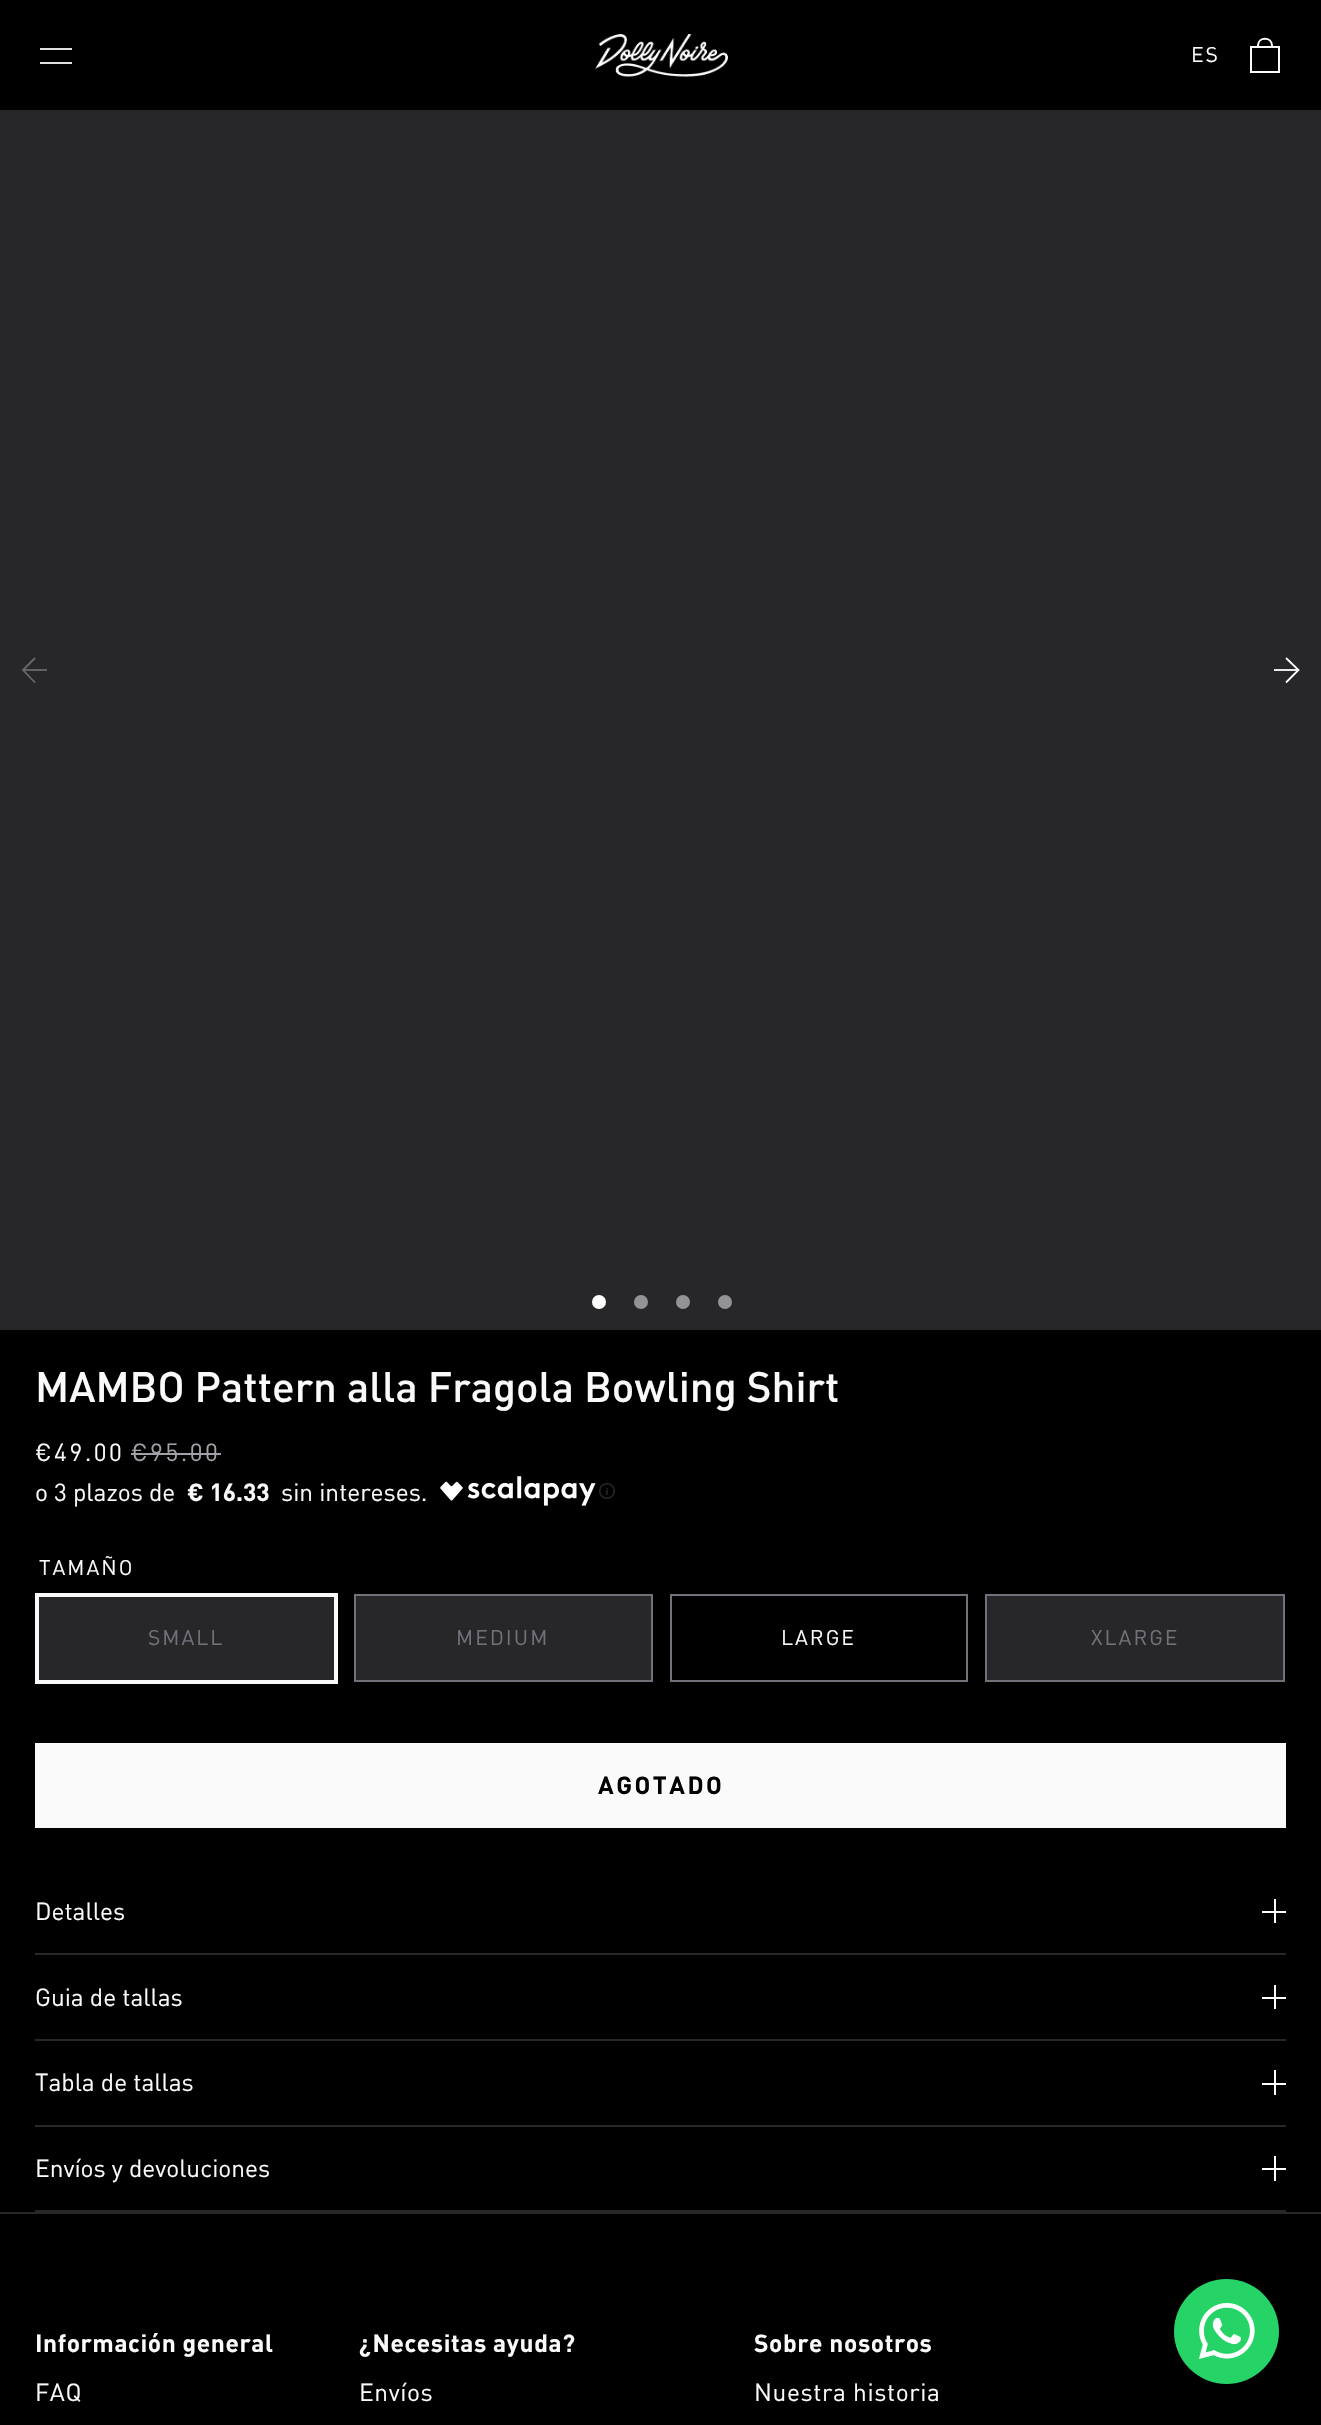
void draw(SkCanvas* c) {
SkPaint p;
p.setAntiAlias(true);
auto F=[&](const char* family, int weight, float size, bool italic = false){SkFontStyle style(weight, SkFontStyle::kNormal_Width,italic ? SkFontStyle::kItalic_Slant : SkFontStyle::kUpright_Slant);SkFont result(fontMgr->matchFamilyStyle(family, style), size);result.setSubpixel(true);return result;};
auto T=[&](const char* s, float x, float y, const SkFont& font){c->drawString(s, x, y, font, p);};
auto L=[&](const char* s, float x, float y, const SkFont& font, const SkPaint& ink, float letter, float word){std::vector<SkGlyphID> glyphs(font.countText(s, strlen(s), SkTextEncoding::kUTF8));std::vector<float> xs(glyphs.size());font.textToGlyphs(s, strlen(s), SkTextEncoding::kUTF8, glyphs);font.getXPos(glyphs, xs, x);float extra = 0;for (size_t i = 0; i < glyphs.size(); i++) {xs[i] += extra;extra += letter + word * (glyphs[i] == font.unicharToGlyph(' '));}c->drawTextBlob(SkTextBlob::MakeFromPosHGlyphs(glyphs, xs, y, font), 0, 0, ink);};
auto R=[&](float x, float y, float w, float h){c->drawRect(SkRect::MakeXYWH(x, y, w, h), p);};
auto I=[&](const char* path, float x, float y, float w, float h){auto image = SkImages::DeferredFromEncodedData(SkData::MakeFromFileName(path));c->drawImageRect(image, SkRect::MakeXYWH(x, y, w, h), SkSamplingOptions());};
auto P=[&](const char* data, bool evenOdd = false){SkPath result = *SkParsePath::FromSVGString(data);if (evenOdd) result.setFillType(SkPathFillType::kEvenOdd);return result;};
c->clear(0xff000000);
p.setColor(0xffe1e1e1);
R(40,48,32,2);
R(40,62,32,2);
I("1.png",595,34,133,43);
auto f1 = F("DIN",400,21);
p.setColor(0xfffafafa);
L("ES",1191,62,f1,p,2,0);
p.setStroke(true);
p.setStrokeWidth(2.1);
p.setStrokeCap(SkPaint::kSquare_Cap);
c->drawPath(P("M1258 45.5c0-9 14-9 14 0"),p);
p.setStrokeWidth(2);
p.setStrokeCap(SkPaint::kButt_Cap);
c->drawRect(SkRect::MakeXYWH(1251,47,28,25),p);
p.setStroke(false);
p.setColor(0xff27272a);
R(0,110,1321,1220);
p.setColor(0xff626264);
R(23,669,24,2);
p.setStroke(true);
p.setStrokeWidth(1.8);
p.setColor(0xff68686a);
c->drawPath(P("M35 682.5l-12-12.5l12-12"),p);
p.setStroke(false);
p.setColor(0xffe9e9ea);
R(1274,669,25,2);
p.setStroke(true);
p.setColor(0xffffffff);
c->drawPath(P("M1286 658l12.5 12l-12.5 12.5"),p);
p.setStroke(false);
c->drawCircle(599,1302,7,p);
p.setColor(0xff939395);
c->drawCircle(641,1302,7,p);
c->drawCircle(683,1302,7,p);
c->drawCircle(725,1302,7,p);
auto f2 = F("DIN",500,42);
p.setColor(0xfffafafa);
T("MAMBO Pattern alla Fragola Bowling Shirt",35,1402,f2);
auto f3 = F("DIN",400,24.5);
L("€49.00",35,1461,f3,p,2.5,0);
p.setColor(0xffa1a1aa);
L("€95.00",131,1461,f3,p,2.5,0);
R(131,1453,90,2);
p.setColor(0xfffafafa);
T("o 3 plazos de",35,1501,f3);
auto f4 = F("DIN",700,24.5);
T("€ 16.33",187,1501,f4);
T("sin intereses.",281,1501,f3);
I("2.png",440,1476,156,30);
I("3.png",599,1483,16,16);
L("TAMAÑO",39,1575,f1,p,2,0);
p.setColor(0xff27272a);
R(39,1597,295,83);
p.setStroke(true);
p.setStrokeWidth(4);
p.setColor(0xfffafafa);
c->drawRect(SkRect::MakeXYWH(37,1595,299,87),p);
p.setStroke(false);
p.setColor(0xff71717a);
L("SMALL",148,1645,f1,p,2,0);
p.setColor(0xff27272a);
R(356,1596,295,84);
p.setStroke(true);
p.setStrokeWidth(2);
p.setColor(0xff71717a);
c->drawRect(SkRect::MakeXYWH(355,1595,297,86),p);
p.setStroke(false);
L("MEDIUM",456,1645,f1,p,2,0);
p.setStroke(true);
c->drawRect(SkRect::MakeXYWH(671,1595,296,86),p);
p.setStroke(false);
p.setColor(0xfffafafa);
L("LARGE",781,1645,f1,p,2,0);
p.setColor(0xff27272a);
R(987,1596,296,84);
p.setStroke(true);
p.setColor(0xff71717a);
c->drawRect(SkRect::MakeXYWH(986,1595,298,86),p);
p.setStroke(false);
L("XLARGE",1091,1645,f1,p,2,0);
p.setColor(0xfffafafa);
R(35,1743,1251,85);
p.setColor(0xff000000);
L("AGOTADO",598,1794,f4,p,2.5,0);
p.setColor(0xff27272a);
R(35,1953,1251,2);
p.setColor(0xfffafafa);
T("Detalles",35,1920,f3);
p.setColor(0xffffffff);
R(1274,1899,2,24);
R(1262,1911,24,2);
p.setColor(0xff27272a);
R(35,2039,1251,2);
p.setColor(0xfffafafa);
T("Guia de tallas",35,2006,f3);
p.setColor(0xffffffff);
R(1274,1985,2,24);
R(1262,1997,24,2);
p.setColor(0xff27272a);
R(35,2125,1251,2);
p.setColor(0xfffafafa);
T("Tabla de tallas",35,2091,f3);
p.setColor(0xffffffff);
R(1274,2070,2,25);
R(1262,2083,24,2);
p.setColor(0xff27272a);
R(35,2210,1251,2);
p.setColor(0xfffafafa);
T("Envíos y devoluciones",35,2177,f3);
p.setColor(0xffffffff);
R(1274,2156,2,25);
R(1262,2168,24,2);
p.setColor(0xff27272a);
R(0,2212,1321,2);
p.setColor(0xfffafafa);
L("Información general",35,2352,f4,p,.6,0);
L("FAQ",35,2401,f3,p,.6,0);
L("¿Necesitas ayuda?",359,2352,f4,p,.6,0);
L("Envíos",359,2401,f3,p,.6,0);
L("Sobre nosotros",754,2352,f4,p,.6,0);
L("Nuestra historia",754,2401,f3,p,.6,0);
p.setColor(0xff25d366);
c->drawCircle(1226.5,2331.5,52.5,p);
I("4.png",1199,2303,56,56);
}
